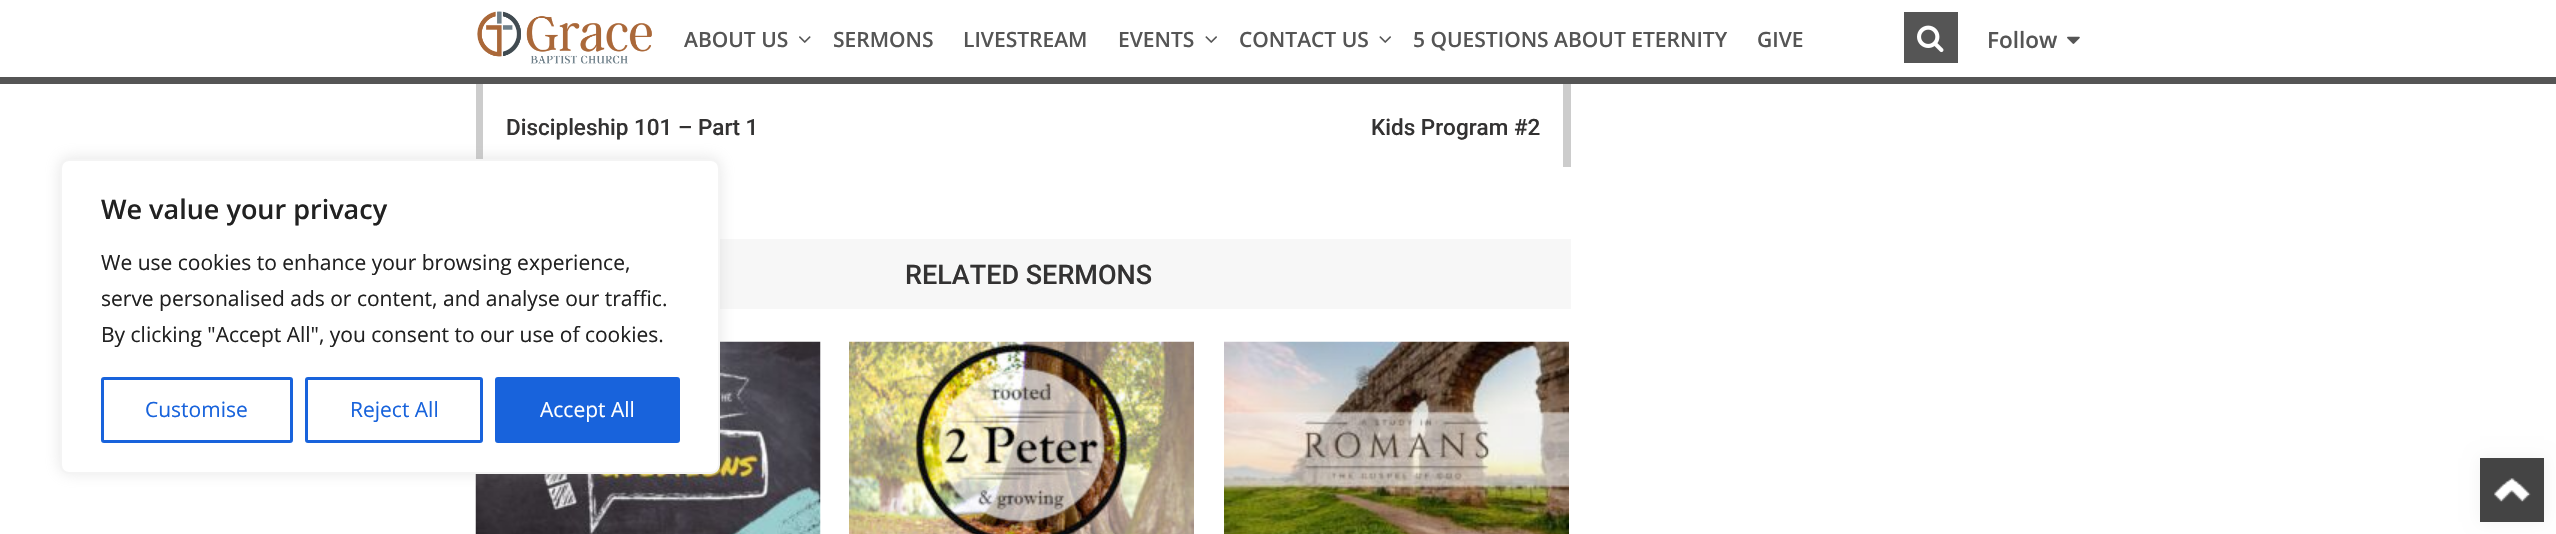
void draw(SkCanvas* c) {
SkPaint p;
p.setAntiAlias(true);
auto F=[&](const char* family, int weight, float size, bool italic = false){SkFontStyle style(weight, SkFontStyle::kNormal_Width,italic ? SkFontStyle::kItalic_Slant : SkFontStyle::kUpright_Slant);SkFont result(fontMgr->matchFamilyStyle(family, style), size);result.setSubpixel(true);return result;};
auto T=[&](const char* s, float x, float y, const SkFont& font){c->drawString(s, x, y, font, p);};
auto R=[&](float x, float y, float w, float h){c->drawRect(SkRect::MakeXYWH(x, y, w, h), p);};
auto I=[&](const char* path, float x, float y, float w, float h){auto image = SkImages::DeferredFromEncodedData(SkData::MakeFromFileName(path));c->drawImageRect(image, SkRect::MakeXYWH(x, y, w, h), SkSamplingOptions());};
c->clear(0xffffffff);
p.setColor(0xff555555);
R(0,77,2556,7);
I("1.png",477,11,175,53);
auto f1 = F("Open Sans",600,21);
T("ABOUT US",684,47,f1);
I("2.png",799,36,12,7);
T("SERMONS",833,47,f1);
T("LIVESTREAM",963,47,f1);
T("EVENTS",1118,47,f1);
I("3.png",1205,36,12,7);
T("CONTACT US",1239,47,f1);
I("3.png",1379,36,12,7);
T("5 QUESTIONS ABOUT ETERNITY",1413,47,f1);
T("GIVE",1757,47,f1);
R(1904,12,54,51);
I("4.png",1917,25,27,28);
auto f2 = F("Open Sans",600,22.5);
T("Follow",1987,48,f2);
I("5.png",2067,36,13,8);
p.setColor(0xffcccccc);
R(476,84,7,83);
p.setColor(0xfff7f7f7);
R(720,239,851,70);
I("6.png",475,341,346,193);
p.setColor(0x4dacabab);
p.setMaskFilter(SkMaskFilter::MakeBlur(kNormal_SkBlurStyle, 7.5));
c->drawRoundRect(SkRect::MakeXYWH(60,158,660,315),9,9,p);
p.setMaskFilter(nullptr);
p.setColor(0xffffffff);
c->drawRoundRect(SkRect::MakeXYWH(61,160,658,313),8,8,p);
p.setStroke(true);
p.setStrokeWidth(2);
p.setColor(0xfff4f4f4);
c->drawRoundRect(SkRect::MakeXYWH(61,160,658,313),8,8,p);
auto f3 = F("Open Sans",600,27);
p.setStroke(false);
p.setColor(0xff212121);
T("We value your privacy",101,219,f3);
auto f4 = F("Open Sans",400,21);
T("We use cookies to enhance your browsing experience,",101,270,f4);
T("serve personalised ads or content, and analyse our traffic.",101,306,f4);
T("By clicking \"Accept All\", you consent to our use of cookies.",101,342,f4);
p.setStroke(true);
p.setStrokeWidth(3);
p.setColor(0xff1863dc);
c->drawRoundRect(SkRect::MakeXYWH(102.5,378.5,189,63),1.5,1.5,p);
p.setStroke(false);
T("Customise",145,417,f4);
p.setStroke(true);
c->drawRoundRect(SkRect::MakeXYWH(306.5,378.5,175,63),1.5,1.5,p);
p.setStroke(false);
T("Reject All",350,417,f4);
c->drawRoundRect(SkRect::MakeXYWH(496.5,378.5,182,63),1.5,1.5,p);
p.setStroke(true);
c->drawRoundRect(SkRect::MakeXYWH(496.5,378.5,182,63),1.5,1.5,p);
p.setStroke(false);
p.setColor(0xffffffff);
T("Accept All",540,417,f4);
auto f5 = F("Roboto",500,22.5);
p.setColor(0xff333232);
T("Discipleship 101 – Part 1",506,135,f5);
p.setColor(0xffcccccc);
R(1563,84,8,83);
p.setColor(0xff333232);
T("Kids Program #2",1371,135,f5);
auto f6 = F("Roboto",500,27);
T("RELATED SERMONS",905,284,f6);
I("7.png",849,341,345,193);
I("8.png",1224,341,345,193);
p.setColor(0x0d000000);
p.setMaskFilter(SkMaskFilter::MakeBlur(kNormal_SkBlurStyle, 7.5));
c->drawRect(SkRect::MakeXYWH(2480,458,64,64),p);
p.setMaskFilter(nullptr);
p.setColor(0xff444444);
R(2480,458,64,64);
I("9.png",2494,478,37,24);
}
